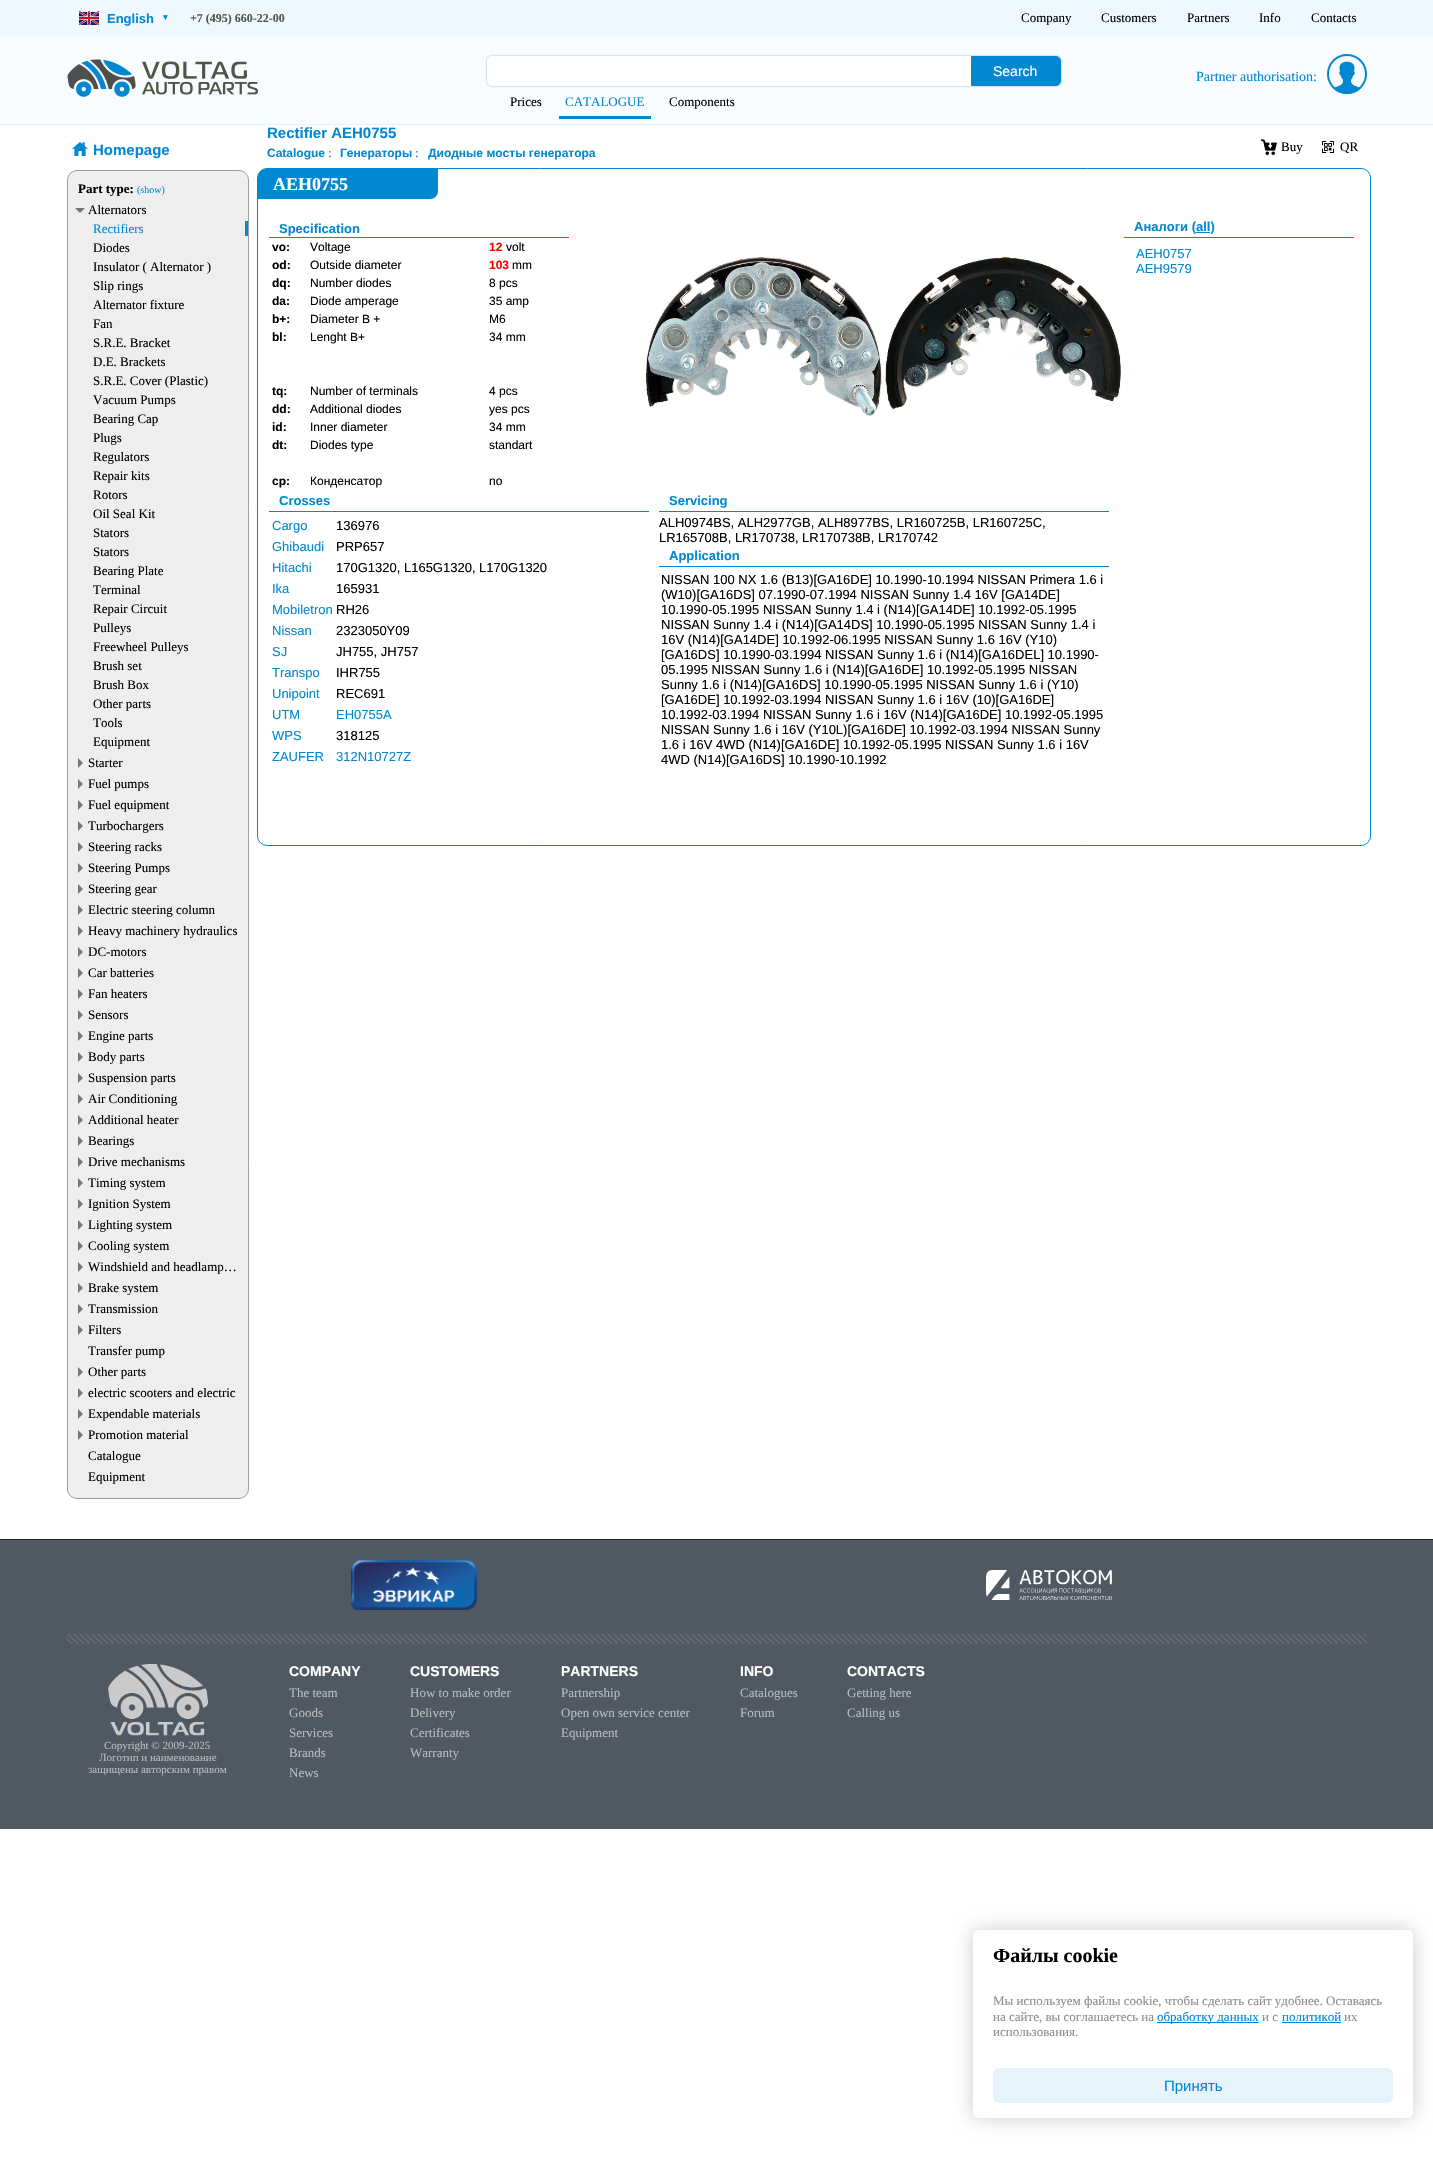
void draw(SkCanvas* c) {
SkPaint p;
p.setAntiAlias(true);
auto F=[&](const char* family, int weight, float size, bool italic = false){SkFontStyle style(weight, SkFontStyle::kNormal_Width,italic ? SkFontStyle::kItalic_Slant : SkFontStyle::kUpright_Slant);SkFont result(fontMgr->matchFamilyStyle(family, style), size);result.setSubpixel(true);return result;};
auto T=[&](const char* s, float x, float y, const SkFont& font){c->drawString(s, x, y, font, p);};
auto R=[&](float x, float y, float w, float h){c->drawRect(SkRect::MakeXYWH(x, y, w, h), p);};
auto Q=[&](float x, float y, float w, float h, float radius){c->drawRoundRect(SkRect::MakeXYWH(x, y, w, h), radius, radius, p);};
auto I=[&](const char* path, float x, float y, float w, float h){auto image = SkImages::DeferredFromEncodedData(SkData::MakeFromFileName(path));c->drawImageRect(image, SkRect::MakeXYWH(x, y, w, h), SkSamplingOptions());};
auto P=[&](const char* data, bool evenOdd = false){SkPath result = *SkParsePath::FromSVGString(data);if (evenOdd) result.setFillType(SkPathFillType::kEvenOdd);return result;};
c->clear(0xffffffff);
p.setColor(0xfff8fcff);
R(0,36,1433,88);
p.setColor(0xffe1f5fe);
R(0,124,1433,1);
p.setColor(0xfff0f8ff);
R(0,0,1433,36);
I("1.png",79,11,20,14);
auto f1 = F("Liberation Sans",700,13);
p.setColor(0xff0288d1);
T("English",107,23,f1);
auto f2 = F("DejaVu Sans",700,9);
T("▾",163,20,f2);
auto f3 = F("Liberation Serif",700,12);
p.setColor(0xff535448);
T("+7 (495) 660-22-00",190,22,f3);
auto f4 = F("Liberation Serif",400,13);
p.setColor(0xff000000);
T("Company",1021,22,f4);
T("Customers",1101,22,f4);
T("Partners",1187,22,f4);
T("Info",1259,22,f4);
T("Contacts",1311,22,f4);
I("2.png",67,59,191,38);
c->save();
c->clipPath(P("M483 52h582v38h-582zm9 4h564c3 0 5 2 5 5v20c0 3-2 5-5 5h-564c-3 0-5-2-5-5v-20c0-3 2-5 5-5z",true),true);
p.setColor(0x80323232);
p.setMaskFilter(SkMaskFilter::MakeBlur(kNormal_SkBlurStyle, 1));
c->drawRoundRect(SkRect::MakeXYWH(487,56,574,30),5,5,p);
p.setMaskFilter(nullptr);
c->restore();
p.setColor(0xffffffff);
c->drawPath(P("M492 56h479v28h-479c-3 0-5-2-5-5v-18c0-3 2-5 5-5z"),p);
p.setColor(0xff0288d1);
c->drawPath(P("M971.5 56.5h84.5c2.5 0 4.5 2 4.5 4.5v20c0 2.5-2 4.5-4.5 4.5h-84.5z"),p);
p.setStroke(true);
p.setStrokeWidth(1);
c->drawPath(P("M971.5 56.5h84.5c2.5 0 4.5 2 4.5 4.5v20c0 2.5-2 4.5-4.5 4.5h-84.5z"),p);
auto f5 = F("Liberation Sans",400,14);
p.setStroke(false);
p.setColor(0xffffffff);
T("Search",993,76,f5);
p.setColor(0xff000000);
T("Prices",510,106,f4);
p.setColor(0xff0288d1);
R(559,116,92,3);
T("CATALOGUE",565,106,f4);
p.setColor(0xff000000);
T("Сomponents",669,106,f4);
auto f6 = F("Liberation Serif",400,14);
p.setColor(0xff0288d1);
T("Partner authorisation:",1196,81,f6);
I("3.png",1327,54,40,40);
I("4.png",72,142,16,14);
auto f7 = F("Liberation Sans",700,15);
T("Homepage",93,155,f7);
p.setColor(0xffeeeeee);
c->drawRoundRect(SkRect::MakeXYWH(67.5,170.5,181,1328),9.5,9.5,p);
p.setStroke(true);
p.setColor(0xff9e9e9e);
c->drawRoundRect(SkRect::MakeXYWH(67.5,170.5,181,1328),9.5,9.5,p);
auto f8 = F("Liberation Serif",700,13);
p.setStroke(false);
p.setColor(0xff000000);
T("Part type:",78,193,f8);
auto f9 = F("Liberation Serif",400,10);
p.setColor(0xff0288d1);
T("(show)",137,193,f9);
p.setColor(0xff777777);
c->drawPath(P("M75 208h10l-5 5z"),p);
p.setColor(0xff000000);
T("Alternators",88,214,f4);
p.setColor(0xff0288d1);
R(245,221,3,15);
T("Rectifiers",93,233,f4);
p.setColor(0xff000000);
T("Diodes",93,252,f4);
T("Insulator ( Alternator )",93,271,f4);
T("Slip rings",93,290,f4);
T("Alternator fixture",93,309,f4);
T("Fan",93,328,f4);
T("S.R.E. Bracket",93,347,f4);
T("D.E. Brackets",93,366,f4);
T("S.R.E. Cover (Plastic)",93,385,f4);
T("Vacuum Pumps",93,404,f4);
T("Bearing Cap",93,423,f4);
T("Plugs",93,442,f4);
T("Regulators",93,461,f4);
T("Repair kits",93,480,f4);
T("Rotors",93,499,f4);
T("Oil Seal Kit",93,518,f4);
T("Stators",93,537,f4);
T("Stators",93,556,f4);
T("Bearing Plate",93,575,f4);
c->save();
c->clipRect(SkRect::MakeXYWH(93,582,152,15));
T("Terminal",93,594,f4);
c->restore();
T("Repair Circuit",93,613,f4);
T("Pulleys",93,632,f4);
T("Freewheel Pulleys",93,651,f4);
T("Brush set",93,670,f4);
T("Brush Box",93,689,f4);
T("Other parts",93,708,f4);
c->save();
c->clipRect(SkRect::MakeXYWH(93,715,152,15));
T("Tools",93,727,f4);
c->restore();
T("Equipment",93,746,f4);
p.setColor(0xff777777);
c->drawPath(P("M78 768v-10l5 5z"),p);
p.setColor(0xff000000);
T("Starter",88,767,f4);
p.setColor(0xff777777);
c->drawPath(P("M78 789v-10l5 5z"),p);
p.setColor(0xff000000);
T("Fuel pumps",88,788,f4);
p.setColor(0xff777777);
c->drawPath(P("M78 810v-10l5 5z"),p);
p.setColor(0xff000000);
T("Fuel equipment",88,809,f4);
p.setColor(0xff777777);
c->drawPath(P("M78 831v-10l5 5z"),p);
c->save();
c->clipRect(SkRect::MakeXYWH(88,818,157,15));
p.setColor(0xff000000);
T("Turbochargers",88,830,f4);
c->restore();
p.setColor(0xff777777);
c->drawPath(P("M78 852v-10l5 5z"),p);
p.setColor(0xff000000);
T("Steering racks",88,851,f4);
p.setColor(0xff777777);
c->drawPath(P("M78 873v-10l5 5z"),p);
p.setColor(0xff000000);
T("Steering Pumps",88,872,f4);
p.setColor(0xff777777);
c->drawPath(P("M78 894v-10l5 5z"),p);
p.setColor(0xff000000);
T("Steering gear",88,893,f4);
p.setColor(0xff777777);
c->drawPath(P("M78 915v-10l5 5z"),p);
p.setColor(0xff000000);
T("Electric steering column",88,914,f4);
p.setColor(0xff777777);
c->drawPath(P("M78 936v-10l5 5z"),p);
p.setColor(0xff000000);
T("Heavy machinery hydraulics",88,935,f4);
p.setColor(0xff777777);
c->drawPath(P("M78 957v-10l5 5z"),p);
p.setColor(0xff000000);
T("DC-motors",88,956,f4);
p.setColor(0xff777777);
c->drawPath(P("M78 978v-10l5 5z"),p);
p.setColor(0xff000000);
T("Car batteries",88,977,f4);
p.setColor(0xff777777);
c->drawPath(P("M78 999v-10l5 5z"),p);
p.setColor(0xff000000);
T("Fan heaters",88,998,f4);
p.setColor(0xff777777);
c->drawPath(P("M78 1020v-10l5 5z"),p);
p.setColor(0xff000000);
T("Sensors",88,1019,f4);
p.setColor(0xff777777);
c->drawPath(P("M78 1041v-10l5 5z"),p);
p.setColor(0xff000000);
T("Engine parts",88,1040,f4);
p.setColor(0xff777777);
c->drawPath(P("M78 1062v-10l5 5z"),p);
p.setColor(0xff000000);
T("Body parts",88,1061,f4);
p.setColor(0xff777777);
c->drawPath(P("M78 1083v-10l5 5z"),p);
p.setColor(0xff000000);
T("Suspension parts",88,1082,f4);
p.setColor(0xff777777);
c->drawPath(P("M78 1104v-10l5 5z"),p);
p.setColor(0xff000000);
T("Air Conditioning",88,1103,f4);
p.setColor(0xff777777);
c->drawPath(P("M78 1125v-10l5 5z"),p);
p.setColor(0xff000000);
T("Additional heater",88,1124,f4);
p.setColor(0xff777777);
c->drawPath(P("M78 1146v-10l5 5z"),p);
p.setColor(0xff000000);
T("Bearings",88,1145,f4);
p.setColor(0xff777777);
c->drawPath(P("M78 1167v-10l5 5z"),p);
p.setColor(0xff000000);
T("Drive mechanisms",88,1166,f4);
p.setColor(0xff777777);
c->drawPath(P("M78 1188v-10l5 5z"),p);
c->save();
c->clipRect(SkRect::MakeXYWH(88,1175,157,15));
p.setColor(0xff000000);
T("Timing system",88,1187,f4);
c->restore();
p.setColor(0xff777777);
c->drawPath(P("M78 1209v-10l5 5z"),p);
p.setColor(0xff000000);
T("Ignition System",88,1208,f4);
p.setColor(0xff777777);
c->drawPath(P("M78 1230v-10l5 5z"),p);
p.setColor(0xff000000);
T("Lighting system",88,1229,f4);
p.setColor(0xff777777);
c->drawPath(P("M78 1251v-10l5 5z"),p);
p.setColor(0xff000000);
T("Cooling system",88,1250,f4);
p.setColor(0xff777777);
c->drawPath(P("M78 1272v-10l5 5z"),p);
p.setColor(0xff000000);
T("Windshield and headlamp…",88,1271,f4);
p.setColor(0xff777777);
c->drawPath(P("M78 1293v-10l5 5z"),p);
p.setColor(0xff000000);
T("Brake system",88,1292,f4);
p.setColor(0xff777777);
c->drawPath(P("M78 1314v-10l5 5z"),p);
c->save();
c->clipRect(SkRect::MakeXYWH(88,1301,157,15));
p.setColor(0xff000000);
T("Transmission",88,1313,f4);
c->restore();
p.setColor(0xff777777);
c->drawPath(P("M78 1335v-10l5 5z"),p);
p.setColor(0xff000000);
T("Filters",88,1334,f4);
c->save();
c->clipRect(SkRect::MakeXYWH(88,1343,157,15));
T("Transfer pump",88,1355,f4);
c->restore();
p.setColor(0xff777777);
c->drawPath(P("M78 1377v-10l5 5z"),p);
p.setColor(0xff000000);
T("Other parts",88,1376,f4);
p.setColor(0xff777777);
c->drawPath(P("M78 1398v-10l5 5z"),p);
p.setColor(0xff000000);
T("electric scooters and electric",88,1397,f4);
p.setColor(0xff777777);
c->drawPath(P("M78 1419v-10l5 5z"),p);
p.setColor(0xff000000);
T("Expendable materials",88,1418,f4);
p.setColor(0xff777777);
c->drawPath(P("M78 1440v-10l5 5z"),p);
p.setColor(0xff000000);
T("Promotion material",88,1439,f4);
T("Catalogue",88,1460,f4);
T("Equipment",88,1481,f4);
p.setColor(0xff0288d1);
T("Rectifier AEH0755",267,138,f7);
auto f10 = F("Liberation Sans",700,12);
T("Catalogue",267,157,f10);
T(":",328,157,f4);
T("Генераторы",340,157,f10);
T(":",415,157,f4);
T("Диодные мосты генератора",428,157,f10);
I("5.png",1261,139,16,16);
p.setColor(0xff000000);
T("Buy",1281,151,f4);
I("6.png",1322,141,12,12);
T("QR",1340,151,f4);
p.setStroke(true);
p.setColor(0xff0288d1);
c->drawRoundRect(SkRect::MakeXYWH(257.5,168.5,1113,677),9.5,9.5,p);
p.setStroke(false);
c->drawPath(P("M266 169h172v22c0 4.5-3.5 8-8 8h-172v-22c0-4.5 3.5-8 8-8z"),p);
auto f11 = F("Liberation Serif",700,18);
p.setColor(0xffffffff);
T("AEH0755",273,190,f11);
p.setColor(0xff0288d1);
R(269,237,300,1);
T("Specification",279,233,f1);
p.setColor(0xff000000);
T("vo:",272,251,f10);
auto f12 = F("Liberation Sans",400,12);
T("Voltage",310,251,f12);
p.setColor(0xffff0000);
T("12",489,251,f10);
p.setColor(0xff000000);
T("volt",506,251,f12);
T("od:",272,269,f10);
T("Outside diameter",310,269,f12);
p.setColor(0xffff0000);
T("103",489,269,f10);
p.setColor(0xff000000);
T("mm",512,269,f12);
T("dq:",272,287,f10);
T("Number diodes",310,287,f12);
T("8 pcs",489,287,f12);
T("da:",272,305,f10);
T("Diode amperage",310,305,f12);
T("35 amp",489,305,f12);
T("b+:",272,323,f10);
T("Diameter B +",310,323,f12);
T("M6",489,323,f12);
T("bl:",272,341,f10);
T("Lenght B+",310,341,f12);
T("34 mm",489,341,f12);
T("tq:",272,395,f10);
T("Number of terminals",310,395,f12);
T("4 pcs",489,395,f12);
T("dd:",272,413,f10);
T("Additional diodes",310,413,f12);
T("yes pcs",489,413,f12);
T("id:",272,431,f10);
T("Inner diameter",310,431,f12);
T("34 mm",489,431,f12);
T("dt:",272,449,f10);
T("Diodes type",310,449,f12);
T("standart",489,449,f12);
T("cp:",272,485,f10);
T("Конденсатор",310,485,f12);
T("no",489,485,f12);
I("7.png",645,257,237,159);
I("8.png",885,255,236,155);
p.setColor(0xff0288d1);
R(269,511,380,1);
T("Crosses",279,505,f1);
auto f13 = F("Liberation Sans",400,13);
T("Cargo",272,530,f13);
p.setColor(0xff000000);
T("136976",336,530,f13);
p.setColor(0xff0288d1);
T("Ghibaudi",272,551,f13);
p.setColor(0xff000000);
T("PRP657",336,551,f13);
p.setColor(0xff0288d1);
T("Hitachi",272,572,f13);
p.setColor(0xff000000);
T("170G1320, L165G1320, L170G1320",336,572,f13);
p.setColor(0xff0288d1);
T("Ika",272,593,f13);
p.setColor(0xff000000);
T("165931",336,593,f13);
p.setColor(0xff0288d1);
T("Mobiletron",272,614,f13);
p.setColor(0xff000000);
T("RH26",336,614,f13);
p.setColor(0xff0288d1);
T("Nissan",272,635,f13);
p.setColor(0xff000000);
T("2323050Y09",336,635,f13);
p.setColor(0xff0288d1);
T("SJ",272,656,f13);
p.setColor(0xff000000);
T("JH755, JH757",336,656,f13);
p.setColor(0xff0288d1);
T("Transpo",272,677,f13);
p.setColor(0xff000000);
T("IHR755",336,677,f13);
p.setColor(0xff0288d1);
T("Unipoint",272,698,f13);
p.setColor(0xff000000);
T("REC691",336,698,f13);
p.setColor(0xff0288d1);
T("UTM",272,719,f13);
T("EH0755A",336,719,f13);
T("WPS",272,740,f13);
p.setColor(0xff000000);
T("318125",336,740,f13);
p.setColor(0xff0288d1);
T("ZAUFER",272,761,f13);
T("312N10727Z",336,761,f13);
R(659,511,450,1);
T("Servicing",669,505,f1);
p.setColor(0xff000000);
T("ALH0974BS, ALH2977GB, ALH8977BS, LR160725B, LR160725C,",659,527,f13);
T("LR165708B, LR170738, LR170738B, LR170742",659,542,f13);
p.setColor(0xff0288d1);
R(659,566,450,1);
T("Application",669,560,f1);
p.setColor(0xff000000);
T("NISSAN 100 NX 1.6 (B13)[GA16DE] 10.1990-10.1994 NISSAN Primera 1.6 i",661,584,f13);
T("(W10)[GA16DS] 07.1990-07.1994 NISSAN Sunny 1.4 16V [GA14DE]",661,599,f13);
T("10.1990-05.1995 NISSAN Sunny 1.4 i (N14)[GA14DE] 10.1992-05.1995",661,614,f13);
T("NISSAN Sunny 1.4 i (N14)[GA14DS] 10.1990-05.1995 NISSAN Sunny 1.4 i",661,629,f13);
T("16V (N14)[GA14DE] 10.1992-06.1995 NISSAN Sunny 1.6 16V (Y10)",661,644,f13);
T("[GA16DS] 10.1990-03.1994 NISSAN Sunny 1.6 i (N14)[GA16DEL] 10.1990-",661,659,f13);
T("05.1995 NISSAN Sunny 1.6 i (N14)[GA16DE] 10.1992-05.1995 NISSAN",661,674,f13);
T("Sunny 1.6 i (N14)[GA16DS] 10.1990-05.1995 NISSAN Sunny 1.6 i (Y10)",661,689,f13);
T("[GA16DE] 10.1992-03.1994 NISSAN Sunny 1.6 i 16V (10)[GA16DE]",661,704,f13);
T("10.1992-03.1994 NISSAN Sunny 1.6 i 16V (N14)[GA16DE] 10.1992-05.1995",661,719,f13);
T("NISSAN Sunny 1.6 i 16V (Y10L)[GA16DE] 10.1992-03.1994 NISSAN Sunny",661,734,f13);
T("1.6 i 16V 4WD (N14)[GA16DE] 10.1992-05.1995 NISSAN Sunny 1.6 i 16V",661,749,f13);
T("4WD (N14)[GA16DS] 10.1990-10.1992",661,764,f13);
p.setColor(0xff0288d1);
R(1124,237,230,1);
T("Аналоги (all)",1134,231,f1);
R(1196,232,14,1);
T("AEH0757",1136,258,f13);
T("AEH9579",1136,273,f13);
p.setColor(0xff505862);
R(0,1540,1433,289);
p.setColor(0xff252931);
R(0,1539,1433,1);
I("9.png",351,1560,126,50);
I("10.png",986,1570,126,30);
I("11.png",67,1634,1300,10);
I("12.png",108,1664,100,72);
auto f14 = F("Liberation Serif",400,11);
p.setColor(0xffbbbbbb);
T("Copyright © 2009-2025",104,1749,f14);
T("Логотип и наименование",99,1761,f14);
T("защищены авторским правом",88,1773,f14);
auto f15 = F("Liberation Sans",700,14);
p.setColor(0xffffffff);
T("COMPANY",289,1676,f15);
p.setColor(0xffbbbbbb);
T("The team",289,1697,f4);
T("Goods",289,1717,f4);
T("Services",289,1737,f4);
T("Brands",289,1757,f4);
T("News",289,1777,f4);
p.setColor(0xffffffff);
T("CUSTOMERS",410,1676,f15);
p.setColor(0xffbbbbbb);
T("How to make order",410,1697,f4);
T("Delivery",410,1717,f4);
T("Certificates",410,1737,f4);
T("Warranty",410,1757,f4);
p.setColor(0xffffffff);
T("PARTNERS",561,1676,f15);
p.setColor(0xffbbbbbb);
T("Partnership",561,1697,f4);
T("Open own service center",561,1717,f4);
T("Equipment",561,1737,f4);
p.setColor(0xffffffff);
T("INFO",740,1676,f15);
p.setColor(0xffbbbbbb);
T("Catalogues",740,1697,f4);
T("Forum",740,1717,f4);
p.setColor(0xffffffff);
T("CONTACTS",847,1676,f15);
p.setColor(0xffbbbbbb);
T("Getting here",847,1697,f4);
T("Calling us",847,1717,f4);
p.setColor(0x33000000);
p.setMaskFilter(SkMaskFilter::MakeBlur(kNormal_SkBlurStyle, 10));
c->drawRoundRect(SkRect::MakeXYWH(973,1930,440,188),5,5,p);
p.setMaskFilter(nullptr);
p.setColor(0xffffffff);
Q(973,1930,440,188,5);
auto f16 = F("Liberation Serif",700,20);
p.setColor(0xff000000);
T("Файлы cookie",993,1962,f16);
p.setColor(0xff8c8c8c);
T("Мы используем файлы cookie, чтобы cделать сайт удобнее. Оставаясь",993,2005,f4);
T("на сайте, вы соглашаетесь на",993,2021,f4);
p.setColor(0xff0288d1);
R(1157,2022,102,1);
T("обработку данных",1157,2021,f4);
p.setColor(0xff8c8c8c);
T("и с",1262,2021,f4);
p.setColor(0xff0288d1);
T("политикой",1282,2021,f4);
R(1282,2022,59,1);
p.setColor(0xff8c8c8c);
T("их",1344,2021,f4);
T("использования.",993,2036,f4);
p.setColor(0xffe6f3fa);
Q(993,2068,400,35,6);
auto f17 = F("Liberation Sans",400,15);
p.setColor(0xff0288d1);
T("Принять",1164,2091,f17);
}
